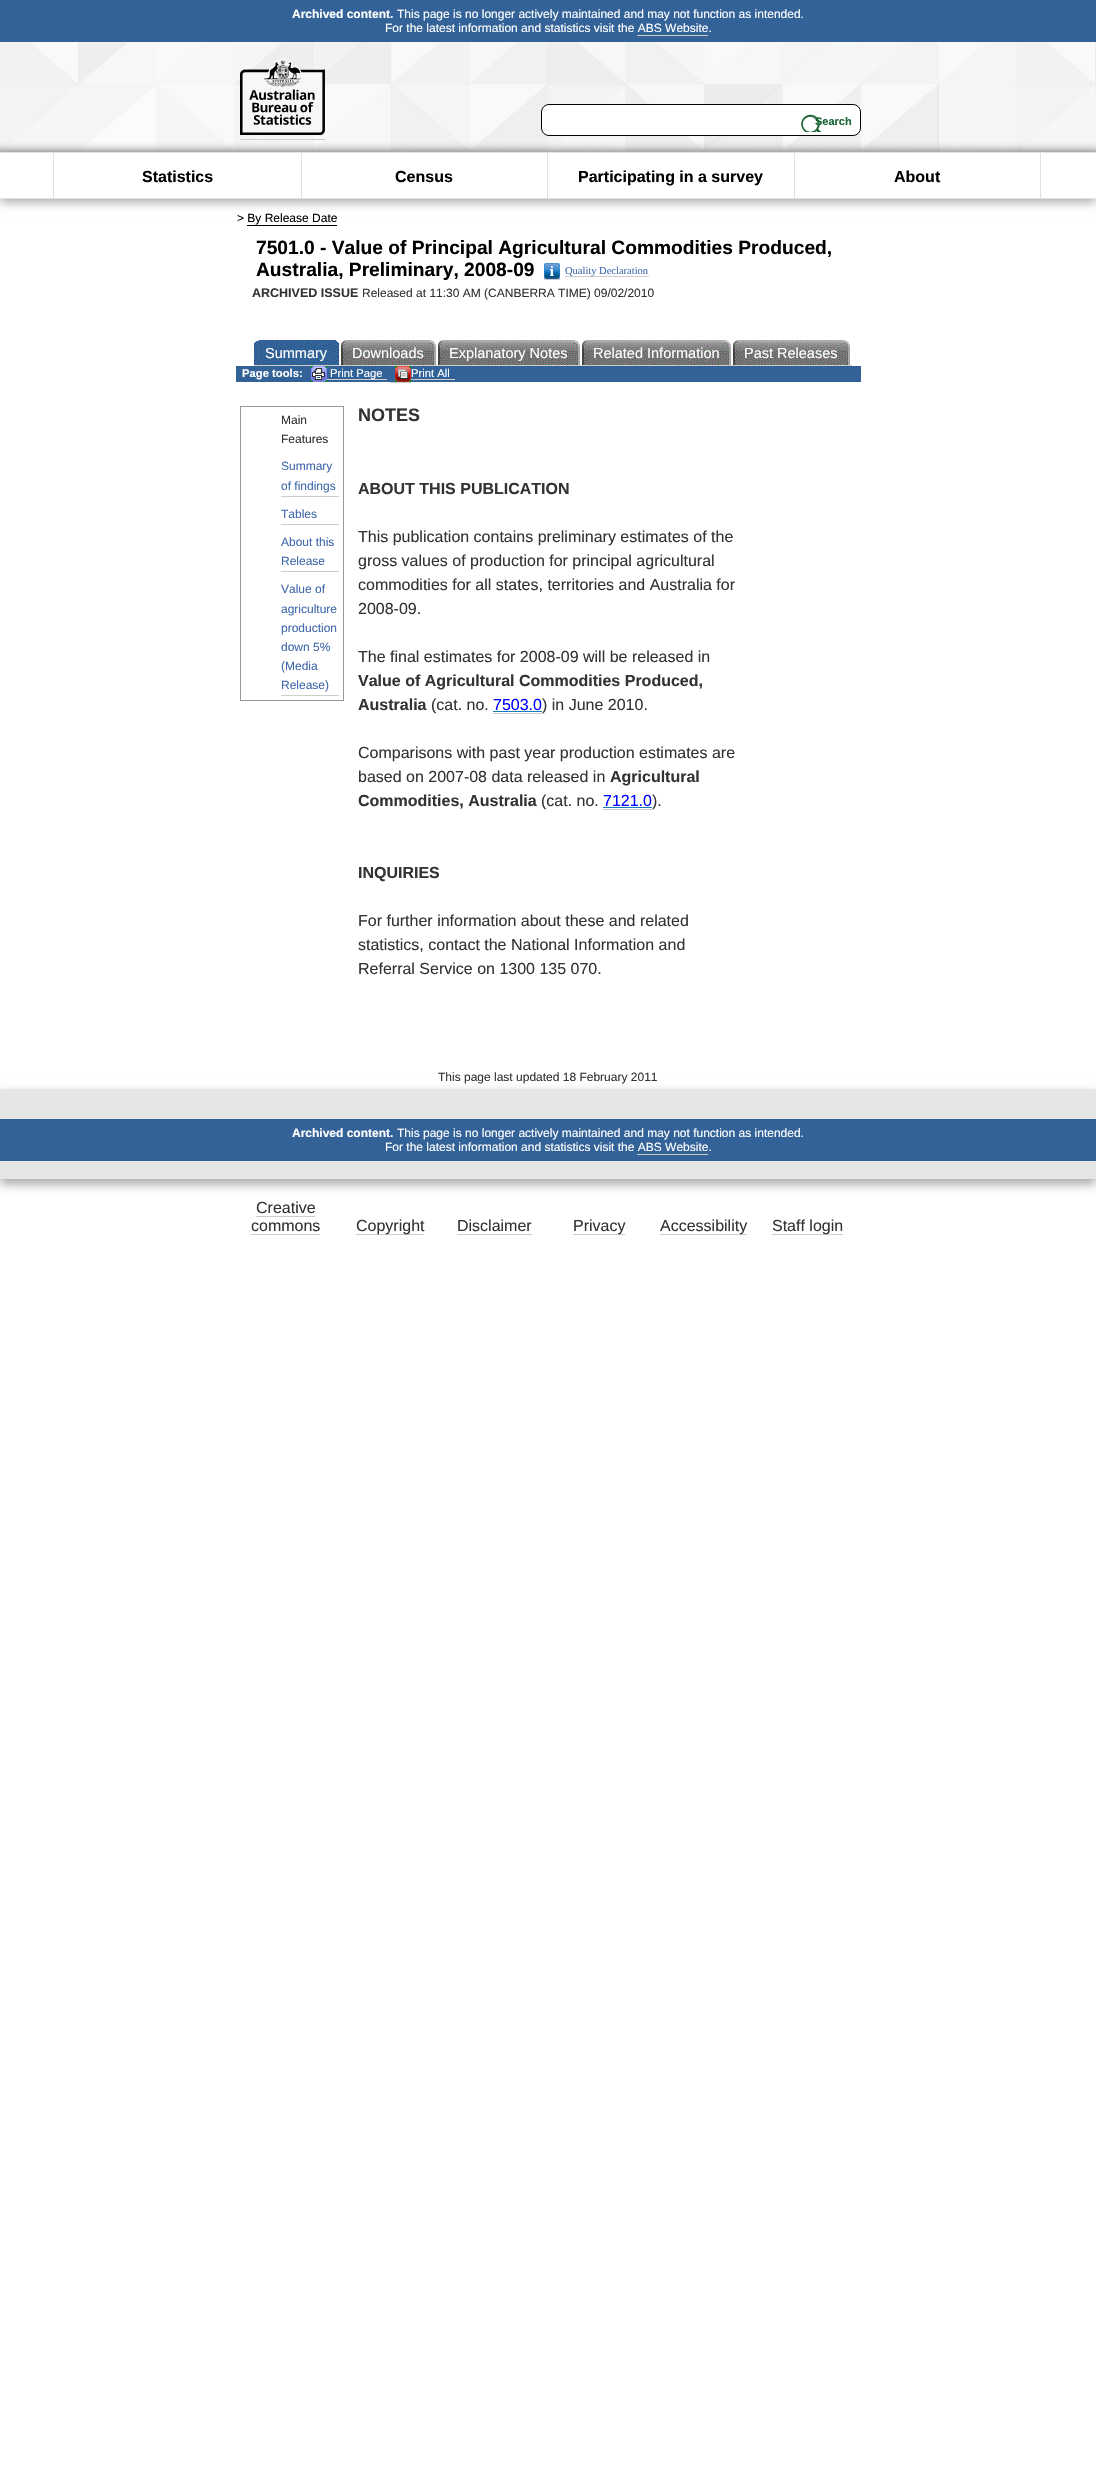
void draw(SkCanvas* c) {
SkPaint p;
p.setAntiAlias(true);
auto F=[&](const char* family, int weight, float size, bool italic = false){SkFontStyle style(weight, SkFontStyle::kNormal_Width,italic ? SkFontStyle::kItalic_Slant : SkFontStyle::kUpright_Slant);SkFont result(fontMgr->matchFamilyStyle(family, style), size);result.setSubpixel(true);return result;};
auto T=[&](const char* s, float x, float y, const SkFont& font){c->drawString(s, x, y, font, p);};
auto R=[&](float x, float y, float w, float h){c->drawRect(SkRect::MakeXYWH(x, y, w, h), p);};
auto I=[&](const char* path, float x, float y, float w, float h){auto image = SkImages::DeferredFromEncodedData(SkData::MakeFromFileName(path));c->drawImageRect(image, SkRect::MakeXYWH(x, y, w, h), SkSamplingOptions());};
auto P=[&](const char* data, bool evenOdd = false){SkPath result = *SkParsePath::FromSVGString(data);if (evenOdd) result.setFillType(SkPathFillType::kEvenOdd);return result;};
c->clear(0xffffffff);
p.setColor(0xff326297);
R(0,0,1096,42);
auto f1 = F("Liberation Sans",700,12);
p.setColor(0xffffffff);
T("Archived content.",292,18,f1);
auto f2 = F("Liberation Sans",400,12);
T("This page is no longer actively maintained and may not function as intended.",397,18,f2);
T("For the latest information and statistics visit the ABS Website.",385,32,f2);
p.setColor(0xffcccccc);
R(637,35,71,1);
I("1.png",0,42,1096,110);
c->save();
c->clipPath(P("M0 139h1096v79h-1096zm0 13h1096v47h-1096z",true),true);
p.setColor(0x59000000);
p.setMaskFilter(SkMaskFilter::MakeBlur(kNormal_SkBlurStyle, 5));
c->drawRect(SkRect::MakeXYWH(0,155,1096,47),p);
p.setMaskFilter(nullptr);
c->restore();
p.setColor(0xffcccccc);
R(240,139,85,1);
I("2.png",240,58,85,77);
p.setColor(0xffffffff);
c->drawRoundRect(SkRect::MakeXYWH(541.5,104.5,319,31),7.5,7.5,p);
p.setStroke(true);
p.setStrokeWidth(1);
p.setColor(0xff000000);
c->drawRoundRect(SkRect::MakeXYWH(541.5,104.5,319,31),7.5,7.5,p);
I("3.png",801,114,21,18);
auto f3 = F("Liberation Sans",700,11);
p.setStroke(false);
p.setColor(0xff146132);
T("Search",815,125,f3);
p.setColor(0xffe1e1e1);
R(0,152,1096,1);
R(0,198,1096,1);
R(301,153,1,45);
R(53,153,1,45);
auto f4 = F("Liberation Sans",700,16);
p.setColor(0xff000000);
T("Statistics",142,182,f4);
p.setColor(0xffe1e1e1);
R(547,153,1,45);
p.setColor(0xff000000);
T("Census",395,182,f4);
p.setColor(0xffe1e1e1);
R(794,153,1,45);
p.setColor(0xff000000);
T("Participating in a survey",578,182,f4);
p.setColor(0xffe1e1e1);
R(1040,153,1,45);
p.setColor(0xff000000);
T("About",894,182,f4);
T("> By Release Date",237,222,f2);
R(247,225,90,1);
auto f5 = F("Liberation Sans",700,19.2);
T("7501.0 - Value of Principal Agricultural Commodities Produced,",256,254,f5);
T("Australia, Preliminary, 2008-09",256,276,f5);
I("4.png",544,263,16,16);
p.setColor(0xffcccccc);
R(565,276,84,1);
auto f6 = F("Liberation Serif",400,10.5);
p.setColor(0xff3f67ab);
T("Quality Declaration",565,274,f6);
p.setColor(0xffcccccc);
R(544,279,16,1);
auto f7 = F("Liberation Sans",700,12.5);
p.setColor(0xff333333);
T("ARCHIVED ISSUE",252,297,f7);
T("Released at 11:30 AM (CANBERRA TIME) 09/02/2010",362,297,f2);
I("5.png",254,340,5,25);
p.setColor(0xffcccccc);
R(254,365,598,1);
I("6.png",259,340,82,25);
auto f8 = F("Liberation Sans",400,14.5);
p.setColor(0xffffffff);
T("Summary",265,358,f8);
I("7.png",341,340,5,25);
I("8.png",346,340,92,25);
T("Downloads",352,358,f8);
I("7.png",438,340,5,25);
I("9.png",443,340,139,25);
T("Explanatory Notes",449,358,f8);
I("7.png",582,340,5,25);
I("10.png",587,340,146,25);
T("Related Information",593,358,f8);
I("7.png",733,340,5,25);
I("11.png",738,340,114,25);
T("Past Releases",744,358,f8);
p.setColor(0xff326297);
R(236,366,625,16);
auto f9 = F("Liberation Sans",700,11.25);
p.setColor(0xffffffff);
T("Page tools:",242,377,f9);
I("12.png",311,366,16,16);
p.setColor(0xffcccccc);
R(327,379,60,1);
auto f10 = F("Liberation Sans",400,11.25);
p.setColor(0xffffffff);
T("Print Page",330,377,f10);
I("13.png",395,366,16,16);
T("Print All",411,377,f10);
p.setColor(0xffcccccc);
R(390,382,21,1);
R(411,379,44,1);
p.setStroke(true);
p.setColor(0xff999999);
c->drawRect(SkRect::MakeXYWH(240.5,406.5,103,294),p);
p.setStroke(false);
p.setColor(0xff333333);
T("Main",281,424,f2);
T("Features",281,443,f2);
p.setColor(0xffcccccc);
R(281,496,58,1);
p.setColor(0xff3f67ab);
T("Summary",281,470,f2);
T("of findings",281,490,f2);
p.setColor(0xffcccccc);
R(281,524,58,1);
p.setColor(0xff3f67ab);
T("Tables",281,518,f2);
p.setColor(0xffcccccc);
R(281,571,58,1);
p.setColor(0xff3f67ab);
T("About this",281,546,f2);
T("Release",281,565,f2);
p.setColor(0xffcccccc);
R(281,695,58,1);
p.setColor(0xff3f67ab);
T("Value of",281,593,f2);
T("agriculture",281,613,f2);
T("production",281,632,f2);
T("down 5%",281,651,f2);
T("(Media",281,670,f2);
T("Release)",281,689,f2);
auto f11 = F("Liberation Sans",700,18);
p.setColor(0xff333333);
T("NOTES",358,421,f11);
T("ABOUT THIS PUBLICATION",358,494,f4);
auto f12 = F("Liberation Sans",400,16);
T("This publication contains preliminary estimates of the",358,542,f12);
T("gross values of production for principal agricultural",358,566,f12);
T("commodities for all states, territories and Australia for",358,590,f12);
T("2008-09.",358,614,f12);
T("The final estimates for 2008-09 will be released in",358,662,f12);
T("Value of Agricultural Commodities Produced,",358,686,f4);
T("Australia",358,710,f4);
T("(cat. no.",431,710,f12);
p.setColor(0xff0000ff);
T("7503.0",493,710,f12);
p.setColor(0xffcccccc);
R(493,713,49,1);
p.setColor(0xff187bbb);
R(493,711,49,1);
p.setColor(0xff333333);
T(") in June 2010.",542,710,f12);
T("Comparisons with past year production estimates are",358,758,f12);
T("based on 2007-08 data released in",358,782,f12);
T("Agricultural",610,782,f4);
T("Commodities, Australia",358,806,f4);
T("(cat. no.",541,806,f12);
p.setColor(0xff0000ff);
T("7121.0",603,806,f12);
p.setColor(0xffcccccc);
R(603,809,49,1);
p.setColor(0xff187bbb);
R(603,807,49,1);
p.setColor(0xff333333);
T(").",652,806,f12);
T("INQUIRIES",358,878,f4);
T("For further information about these and related",358,926,f12);
T("statistics, contact the National Information and",358,950,f12);
T("Referral Service on 1300 135 070.",358,974,f12);
p.setColor(0x59000000);
p.setMaskFilter(SkMaskFilter::MakeBlur(kNormal_SkBlurStyle, 5));
c->drawRect(SkRect::MakeXYWH(0,1094,1096,90),p);
p.setMaskFilter(nullptr);
p.setColor(0xff333333);
T("This page last updated 18 February 2011",438,1081,f2);
p.setColor(0xffe6e6e6);
R(0,1089,1096,90);
p.setColor(0xff326297);
R(0,1119,1096,42);
p.setColor(0xffffffff);
T("Archived content.",292,1137,f1);
T("This page is no longer actively maintained and may not function as intended.",397,1137,f2);
T("For the latest information and statistics visit the ABS Website.",385,1151,f2);
p.setColor(0xffcccccc);
R(637,1154,71,1);
p.setColor(0xff333333);
T("Creative",256,1213,f12);
p.setColor(0xffcccccc);
R(256,1216,59,1);
p.setColor(0xff333333);
T("commons",251,1231,f12);
p.setColor(0xffcccccc);
R(251,1234,69,1);
R(356,1234,68,1);
p.setColor(0xff333333);
T("Copyright",356,1231,f12);
T("Disclaimer",457,1231,f12);
p.setColor(0xffcccccc);
R(457,1234,75,1);
R(573,1234,52,1);
p.setColor(0xff333333);
T("Privacy",573,1231,f12);
p.setColor(0xffcccccc);
R(660,1234,87,1);
p.setColor(0xff333333);
T("Accessibility",660,1231,f12);
p.setColor(0xffcccccc);
R(772,1234,71,1);
p.setColor(0xff333333);
T("Staff login",772,1231,f12);
}
